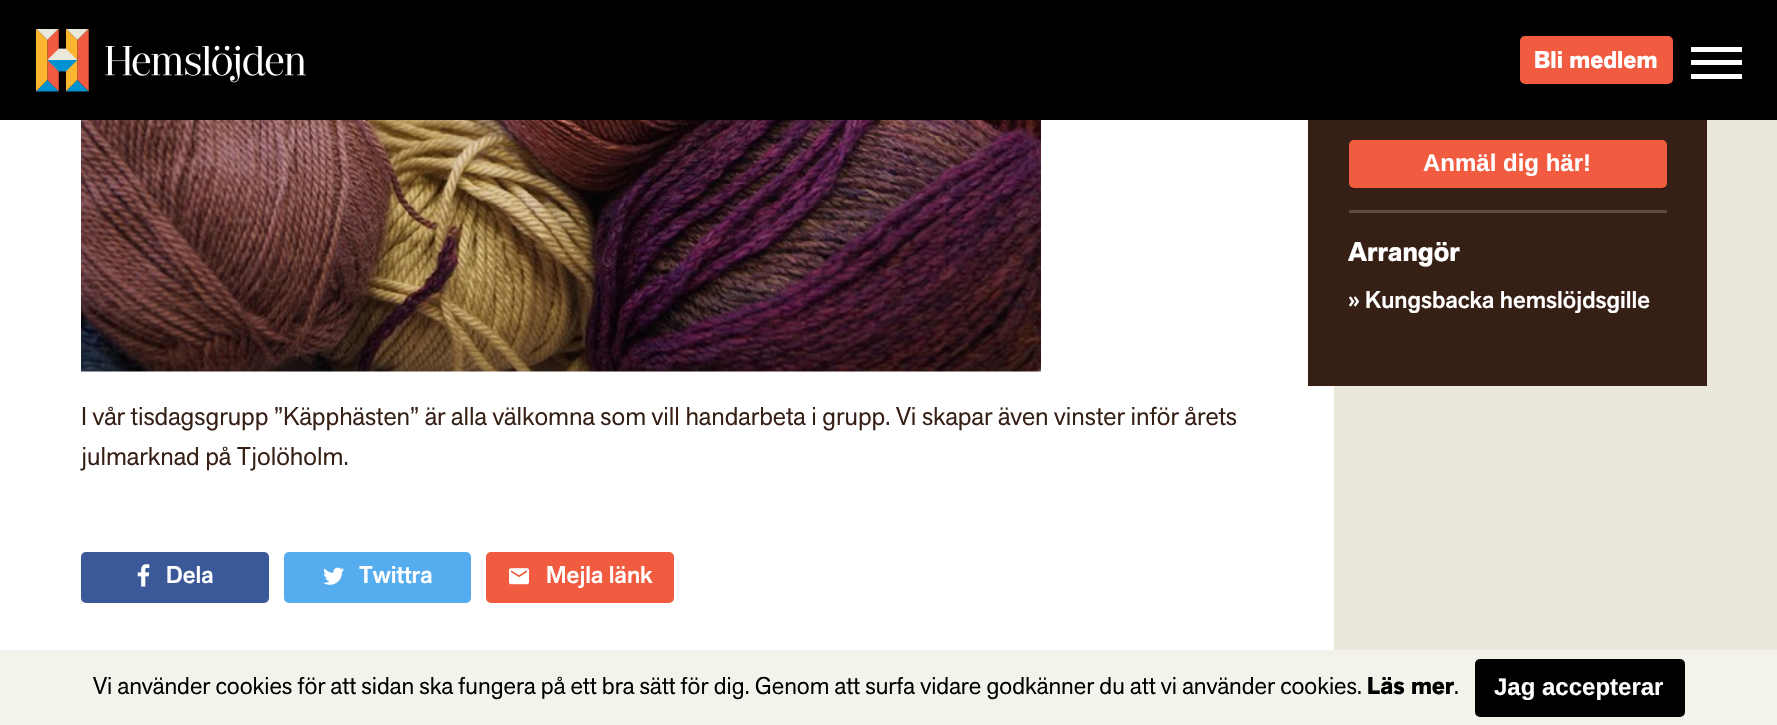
void draw(SkCanvas* c) {
SkPaint p;
p.setAntiAlias(true);
auto F=[&](const char* family, int weight, float size, bool italic = false){SkFontStyle style(weight, SkFontStyle::kNormal_Width,italic ? SkFontStyle::kItalic_Slant : SkFontStyle::kUpright_Slant);SkFont result(fontMgr->matchFamilyStyle(family, style), size);result.setSubpixel(true);return result;};
auto T=[&](const char* s, float x, float y, const SkFont& font){c->drawString(s, x, y, font, p);};
auto R=[&](float x, float y, float w, float h){c->drawRect(SkRect::MakeXYWH(x, y, w, h), p);};
auto Q=[&](float x, float y, float w, float h, float radius){c->drawRoundRect(SkRect::MakeXYWH(x, y, w, h), radius, radius, p);};
auto I=[&](const char* path, float x, float y, float w, float h){auto image = SkImages::DeferredFromEncodedData(SkData::MakeFromFileName(path));c->drawImageRect(image, SkRect::MakeXYWH(x, y, w, h), SkSamplingOptions());};
c->clear(0xffe9e8db);
p.setColor(0xff000000);
R(0,0,1777,120);
I("1.png",36,29,270,63);
p.setColor(0xfff15b40);
Q(1520,36,153,48,5);
auto f1 = F("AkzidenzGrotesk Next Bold",700,24);
p.setColor(0xffffffff);
T("Bli medlem",1534,68,f1);
R(1691,47,51,5);
R(1691,60,51,5);
R(1691,74,51,5);
R(0,120,1334,530);
p.setColor(0xff361f15);
R(1308,120,399,266);
p.setColor(0xff5e4c44);
R(1349,210,318,3);
p.setColor(0xfff15b40);
Q(1349,140,318,48,5);
auto f2 = F("Liberation Sans",700,24);
p.setColor(0xffffffff);
T("Anmäl dig här!",1423,171,f2);
auto f3 = F("AkzidenzGrotesk Next Bold",700,27);
T("Arrangör",1348,261,f3);
auto f4 = F("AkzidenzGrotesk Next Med",500,24);
T("»",1348,308,f4);
T("Kungsbacka hemslöjdsgille",1365,308,f4);
I("2.png",81,120,960,252);
auto f5 = F("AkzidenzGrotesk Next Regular",400,25.5);
p.setColor(0xff361f15);
T("I vår tisdagsgrupp ”Käpphästen” är alla välkomna som vill handarbeta i grupp. Vi skapar även vinster inför årets",81,425,f5);
T("julmarknad på Tjolöholm.",81,465,f5);
p.setColor(0xff3b5998);
Q(81,552,188,51,5);
I("3.png",137,564,13,23);
p.setColor(0xffffffff);
T("Dela",166,583,f4);
p.setColor(0xff55acee);
Q(284,552,187,51,5);
I("4.png",323,567,21,18);
p.setColor(0xffffffff);
T("Twittra",359,583,f4);
p.setColor(0xfff15b40);
Q(486,552,188,51,5);
I("5.png",509,568,20,17);
p.setColor(0xffffffff);
T("Mejla länk",546,583,f4);
p.setColor(0xfff4f3eb);
R(0,650,1777,75);
auto f6 = F("AkzidenzGrotesk Next Regular",400,24);
p.setColor(0xff000000);
T("Vi använder cookies för att sidan ska fungera på ett bra sätt för dig. Genom att surfa vidare godkänner du att vi använder cookies.",93,694,f6);
T("Läs mer",1367,694,f1);
T(".",1454,694,f6);
Q(1475,659,210,58,5);
p.setColor(0xffffffff);
T("Jag accepterar",1494,695,f2);
}
